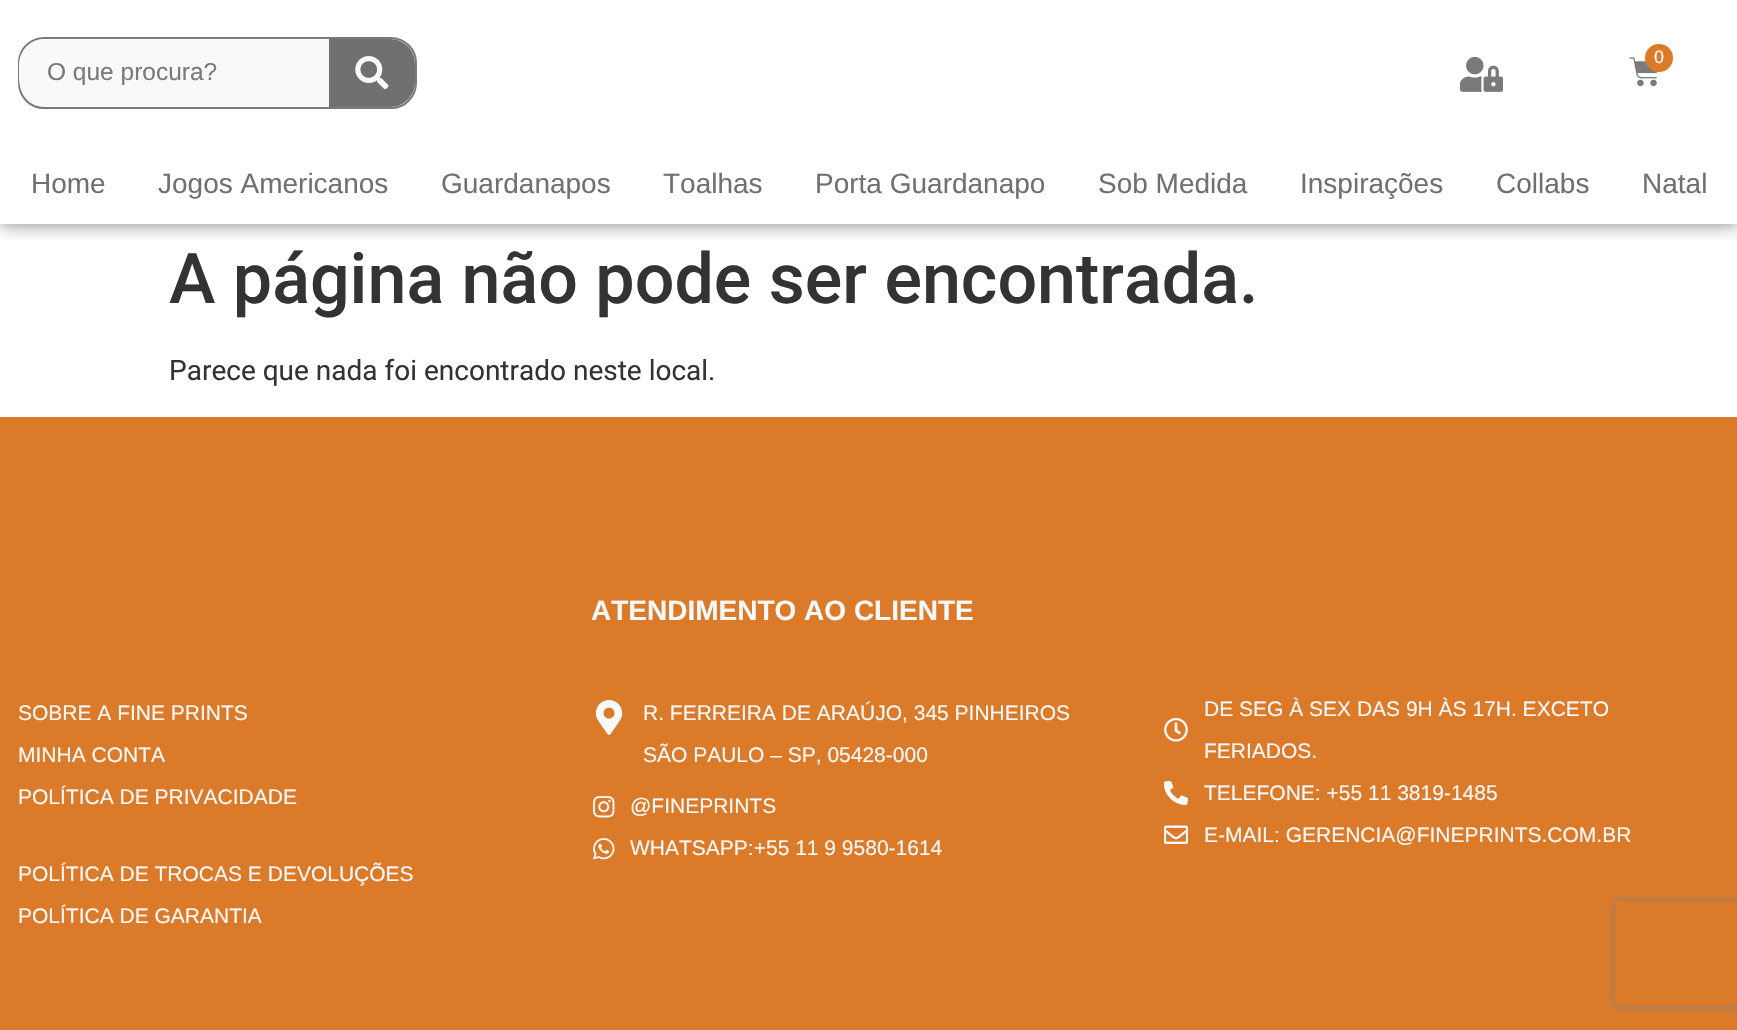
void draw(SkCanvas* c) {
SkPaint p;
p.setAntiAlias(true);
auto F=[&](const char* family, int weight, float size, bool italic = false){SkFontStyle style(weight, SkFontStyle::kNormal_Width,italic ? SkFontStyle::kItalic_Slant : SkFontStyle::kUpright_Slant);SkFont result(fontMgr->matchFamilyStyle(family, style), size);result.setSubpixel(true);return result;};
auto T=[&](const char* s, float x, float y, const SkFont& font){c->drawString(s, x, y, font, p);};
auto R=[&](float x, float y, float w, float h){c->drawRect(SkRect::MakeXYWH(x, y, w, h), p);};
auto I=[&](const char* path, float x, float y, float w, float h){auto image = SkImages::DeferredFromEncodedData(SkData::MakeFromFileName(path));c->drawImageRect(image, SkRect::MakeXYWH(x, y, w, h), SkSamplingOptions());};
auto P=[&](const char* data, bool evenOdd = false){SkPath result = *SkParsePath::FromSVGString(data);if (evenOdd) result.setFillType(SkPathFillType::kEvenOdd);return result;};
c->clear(0xffffffff);
c->save();
c->clipRect(SkRect::MakeXYWH(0,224,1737,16));
p.setColor(0x80000000);
p.setMaskFilter(SkMaskFilter::MakeBlur(kNormal_SkBlurStyle, 9));
c->drawRect(SkRect::MakeXYWH(0,0,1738,224),p);
p.setMaskFilter(nullptr);
c->restore();
I("1.png",1460,56,43,36);
I("2.png",1629,57,30,30);
p.setColor(0xffdb7a29);
c->drawCircle(1659,58,14,p);
auto f1 = F("Liberation Sans",400,18);
p.setColor(0xffffffff);
T("0",1654,63,f1);
p.setColor(0xfff8f9fa);
c->drawRoundRect(SkRect::MakeXYWH(19,38,397,70),25,25,p);
p.setStroke(true);
p.setStrokeWidth(2);
p.setColor(0xff7a7a7a);
c->drawRoundRect(SkRect::MakeXYWH(19,38,397,70),25,25,p);
p.setStroke(false);
p.setColor(0xfff8f9fa);
c->drawPath(P("M45 40h266v64h-266c-14 0-25-11-25-25v-14c0-14 11-25 25-25z"),p);
p.setStroke(true);
c->drawPath(P("M45 40h266v64h-266c-14 0-25-11-25-25v-14c0-14 11-25 25-25z"),p);
auto f2 = F("Liberation Sans",400,24.5);
p.setStroke(false);
p.setColor(0xff7a7a7a);
T("O que procura?",47,80,f2);
p.setColor(0xff707070);
c->drawPath(P("M329 39h61c14 0 25 11 25 25v18c0 14-11 25-25 25h-61z"),p);
I("3.png",355,56,34,33);
auto f3 = F("Liberation Sans",400,28);
T("Home",31,193,f3);
T("Jogos Americanos",158,193,f3);
T("Guardanapos",441,193,f3);
T("Toalhas",663,193,f3);
T("Porta Guardanapo",815,193,f3);
T("Sob Medida",1098,193,f3);
T("Inspirações",1300,193,f3);
T("Collabs",1496,193,f3);
T("Natal",1642,193,f3);
auto f4 = F("Roboto",500,70);
p.setColor(0xff333333);
T("A página não pode ser encontrada.",169,303,f4);
auto f5 = F("Roboto",400,28);
T("Parece que nada foi encontrado neste local.",169,380,f5);
p.setColor(0xffdb7a29);
R(0,417,1737,613);
auto f6 = F("Liberation Sans",400,21);
p.setColor(0xfff8f9fa);
T("SOBRE A FINE PRINTS",18,720,f6);
T("MINHA CONTA",18,762,f6);
T("POLÍTICA DE PRIVACIDADE",18,804,f6);
T("POLÍTICA DE TROCAS E DEVOLUÇÕES",18,881,f6);
T("POLÍTICA DE GARANTIA",18,923,f6);
auto f7 = F("Liberation Sans",700,28);
T("ATENDIMENTO AO CLIENTE",591,620,f7);
I("4.png",595,700,28,35);
T("R. FERREIRA DE ARAÚJO, 345 PINHEIROS",643,720,f6);
T("SÃO PAULO – SP, 05428-000",643,762,f6);
I("5.png",593,796,22,22);
T("@FINEPRINTS",630,813,f6);
I("6.png",593,838,22,22);
T("WHATSAPP:+55 11 9 9580-1614",630,855,f6);
I("7.png",1164,718,24,24);
T("DE SEG À SEX DAS 9H ÀS 17H. EXCETO",1204,716,f6);
T("FERIADOS.",1204,758,f6);
I("8.png",1164,781,24,24);
T("TELEFONE: +55 11 3819-1485",1204,800,f6);
I("9.png",1164,825,24,19);
T("E-MAIL: GERENCIA@FINEPRINTS.COM.BR",1204,842,f6);
c->save();
c->clipPath(P("M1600 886h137v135h-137zm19 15h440c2 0 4 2 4 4v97c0 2-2 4-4 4h-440c-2 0-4-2-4-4v-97c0-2 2-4 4-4z",true),true);
p.setColor(0xff808080);
p.setMaskFilter(SkMaskFilter::MakeBlur(kNormal_SkBlurStyle, 4.5));
c->drawRoundRect(SkRect::MakeXYWH(1615,901,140,105),4,4,p);
p.setMaskFilter(nullptr);
c->restore();
}
